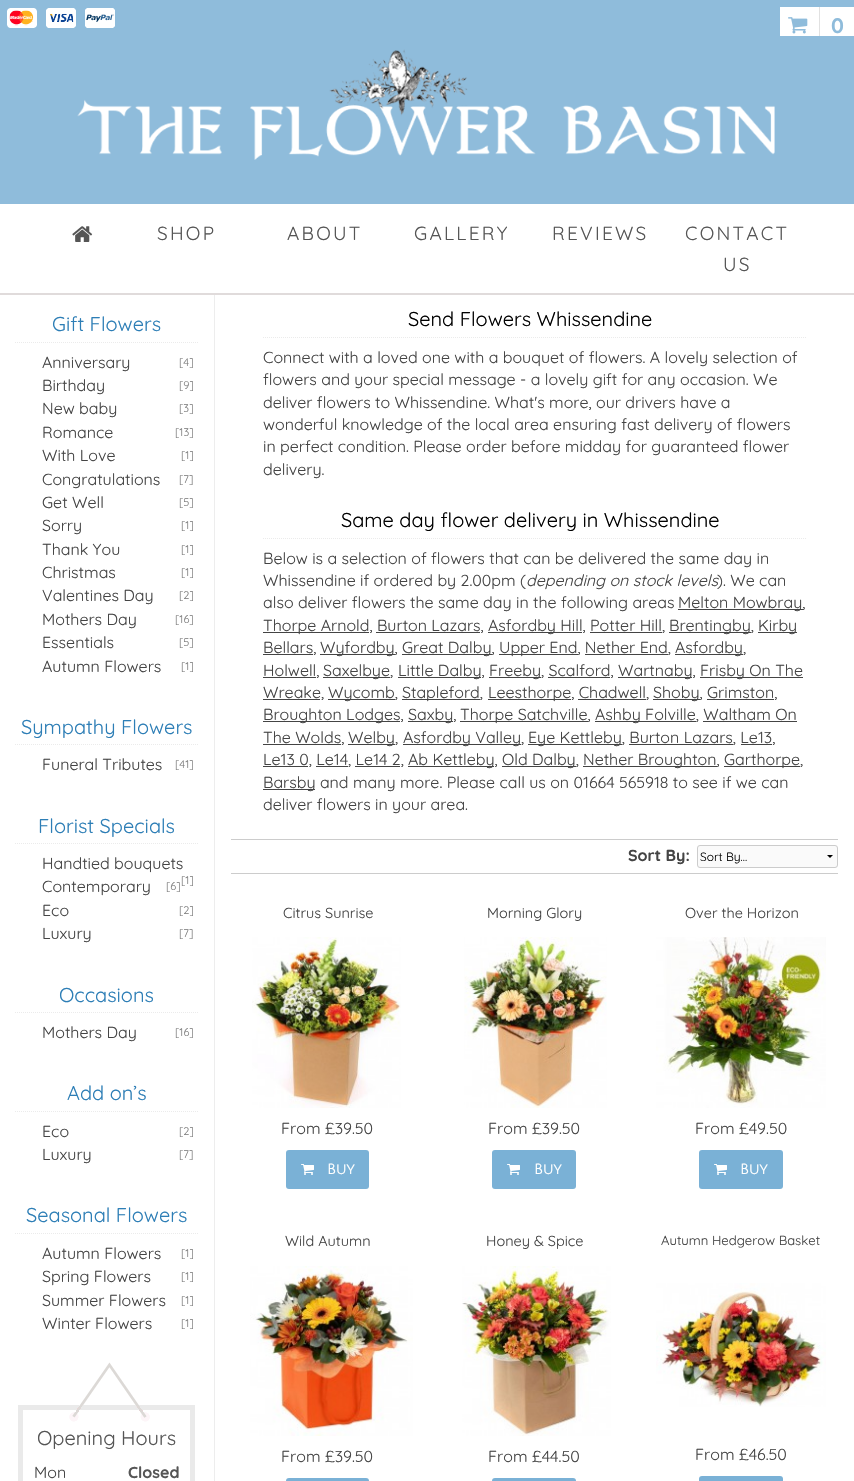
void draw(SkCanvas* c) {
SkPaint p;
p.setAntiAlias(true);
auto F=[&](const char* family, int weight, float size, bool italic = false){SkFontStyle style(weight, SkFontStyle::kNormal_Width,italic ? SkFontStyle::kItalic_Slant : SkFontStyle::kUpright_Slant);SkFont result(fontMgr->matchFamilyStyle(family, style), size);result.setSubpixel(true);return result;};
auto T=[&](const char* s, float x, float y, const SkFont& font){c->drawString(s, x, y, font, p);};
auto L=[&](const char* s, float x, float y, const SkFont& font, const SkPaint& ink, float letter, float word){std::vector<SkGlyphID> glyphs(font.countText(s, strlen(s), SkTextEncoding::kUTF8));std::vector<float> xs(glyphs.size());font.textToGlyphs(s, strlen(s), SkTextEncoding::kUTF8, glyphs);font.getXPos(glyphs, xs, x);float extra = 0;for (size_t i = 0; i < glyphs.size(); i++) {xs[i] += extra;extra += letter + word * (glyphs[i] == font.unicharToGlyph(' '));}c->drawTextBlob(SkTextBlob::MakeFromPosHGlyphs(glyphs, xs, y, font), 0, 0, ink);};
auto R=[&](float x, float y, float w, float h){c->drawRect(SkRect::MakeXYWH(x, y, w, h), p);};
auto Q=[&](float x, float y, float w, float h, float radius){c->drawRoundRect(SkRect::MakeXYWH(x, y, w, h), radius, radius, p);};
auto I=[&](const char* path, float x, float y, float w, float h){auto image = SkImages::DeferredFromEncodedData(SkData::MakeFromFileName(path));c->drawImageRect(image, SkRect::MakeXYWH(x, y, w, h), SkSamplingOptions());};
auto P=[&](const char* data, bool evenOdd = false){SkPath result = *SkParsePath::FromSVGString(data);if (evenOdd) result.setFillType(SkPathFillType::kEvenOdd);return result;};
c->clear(0xffffffff);
p.setColor(0xff8fbcdb);
R(0,0,854,36);
I("1.png",7,8,108,20);
p.setColor(0xffffffff);
R(780,7,39,29);
I("2.png",788,17,20,17);
R(820,7,34,29);
p.setColor(0xffe1e1e1);
R(819,7,1,36);
auto f1 = F("Quicksand",700,21);
p.setColor(0xff8fbcdb);
T("0",831,33,f1);
R(0,36,854,168);
I("3.png",77,49,698,111);
p.setColor(0xffe0dbdb);
R(0,293,854,2);
I("4.png",72,226,21,16);
auto f2 = F("Quicksand",400,19);
p.setColor(0xff555555);
L("SHOP",157,240,f2,p,2.25,0);
L("ABOUT",287,240,f2,p,2.25,0);
L("GALLERY",414,240,f2,p,2.25,0);
L("REVIEWS",552,240,f2,p,2.25,0);
L("CONTACT",685,240,f2,p,2.25,0);
L("US",723,271,f2,p,2.25,0);
p.setStroke(true);
p.setStrokeWidth(1);
p.setColor(0xffebebeb);
p.setPathEffect(SkDashPathEffect::Make({{1,1}}, 0));
c->drawPath(P("M15 342.5h184"),p);
p.setPathEffect(nullptr);
auto f3 = F("Quicksand",400,20);
p.setStroke(false);
p.setColor(0xff2d7eb6);
T("Gift Flowers",52,331,f3);
auto f4 = F("Quicksand",400,16);
p.setColor(0xff444444);
T("Anniversary",42,368,f4);
auto f5 = F("Quicksand",400,11);
p.setColor(0xff7d7d7d);
T("[4]",179,366,f5);
p.setColor(0xff444444);
T("Birthday",42,391,f4);
p.setColor(0xff7d7d7d);
T("[9]",179,389,f5);
p.setColor(0xff444444);
T("New baby",42,414,f4);
p.setColor(0xff7d7d7d);
T("[3]",179,412,f5);
p.setColor(0xff444444);
T("Romance",42,438,f4);
p.setColor(0xff7d7d7d);
T("[13]",175,436,f5);
p.setColor(0xff444444);
T("With Love",42,461,f4);
p.setColor(0xff7d7d7d);
T("[1]",181,459,f5);
p.setColor(0xff444444);
T("Congratulations",42,485,f4);
p.setColor(0xff7d7d7d);
T("[7]",179,483,f5);
p.setColor(0xff444444);
T("Get Well",42,508,f4);
p.setColor(0xff7d7d7d);
T("[5]",179,506,f5);
p.setColor(0xff444444);
T("Sorry",42,531,f4);
p.setColor(0xff7d7d7d);
T("[1]",181,529,f5);
p.setColor(0xff444444);
T("Thank You",42,555,f4);
p.setColor(0xff7d7d7d);
T("[1]",181,553,f5);
p.setColor(0xff444444);
T("Christmas",42,578,f4);
p.setColor(0xff7d7d7d);
T("[1]",181,576,f5);
p.setColor(0xff444444);
T("Valentines Day",42,601,f4);
p.setColor(0xff7d7d7d);
T("[2]",179,599,f5);
p.setColor(0xff444444);
T("Mothers Day",42,625,f4);
p.setColor(0xff7d7d7d);
T("[16]",175,623,f5);
p.setColor(0xff444444);
T("Essentials",42,648,f4);
p.setColor(0xff7d7d7d);
T("[5]",179,646,f5);
p.setColor(0xff444444);
T("Autumn Flowers",42,672,f4);
p.setColor(0xff7d7d7d);
T("[1]",181,670,f5);
p.setStroke(true);
p.setColor(0xffebebeb);
p.setPathEffect(SkDashPathEffect::Make({{1,1}}, 0));
c->drawPath(P("M15 744.5h184"),p);
p.setPathEffect(nullptr);
p.setStroke(false);
p.setColor(0xff2d7eb6);
T("Sympathy Flowers",21,734,f3);
p.setColor(0xff444444);
T("Funeral Tributes",42,770,f4);
p.setColor(0xff7d7d7d);
T("[41]",175,768,f5);
p.setStroke(true);
p.setColor(0xffebebeb);
p.setPathEffect(SkDashPathEffect::Make({{1,1}}, 0));
c->drawPath(P("M15 843.5h184"),p);
p.setPathEffect(nullptr);
p.setStroke(false);
p.setColor(0xff2d7eb6);
T("Florist Specials",38,833,f3);
p.setColor(0xff444444);
T("Handtied bouquets",42,869,f4);
p.setColor(0xff7d7d7d);
T("[1]",181,884,f5);
p.setColor(0xff444444);
T("Contemporary",42,892,f4);
p.setColor(0xff7d7d7d);
T("[6]",166,890,f5);
p.setColor(0xff444444);
T("Eco",42,916,f4);
p.setColor(0xff7d7d7d);
T("[2]",179,914,f5);
p.setColor(0xff444444);
T("Luxury",42,939,f4);
p.setColor(0xff7d7d7d);
T("[7]",179,937,f5);
p.setStroke(true);
p.setColor(0xffebebeb);
p.setPathEffect(SkDashPathEffect::Make({{1,1}}, 0));
c->drawPath(P("M15 1012.5h184"),p);
p.setPathEffect(nullptr);
p.setStroke(false);
p.setColor(0xff2d7eb6);
T("Occasions",59,1002,f3);
p.setColor(0xff444444);
T("Mothers Day",42,1038,f4);
p.setColor(0xff7d7d7d);
T("[16]",175,1036,f5);
p.setStroke(true);
p.setColor(0xffebebeb);
p.setPathEffect(SkDashPathEffect::Make({{1,1}}, 0));
c->drawPath(P("M15 1111.5h184"),p);
p.setPathEffect(nullptr);
p.setStroke(false);
p.setColor(0xff2d7eb6);
T("Add on’s",67,1100,f3);
p.setColor(0xff444444);
T("Eco",42,1137,f4);
p.setColor(0xff7d7d7d);
T("[2]",179,1135,f5);
p.setColor(0xff444444);
T("Luxury",42,1160,f4);
p.setColor(0xff7d7d7d);
T("[7]",179,1158,f5);
p.setStroke(true);
p.setColor(0xffebebeb);
p.setPathEffect(SkDashPathEffect::Make({{1,1}}, 0));
c->drawPath(P("M15 1233.5h184"),p);
p.setPathEffect(nullptr);
p.setStroke(false);
p.setColor(0xff2d7eb6);
T("Seasonal Flowers",26,1222,f3);
p.setColor(0xff444444);
T("Autumn Flowers",42,1259,f4);
p.setColor(0xff7d7d7d);
T("[1]",181,1257,f5);
p.setColor(0xff444444);
T("Spring Flowers",42,1282,f4);
p.setColor(0xff7d7d7d);
T("[1]",181,1280,f5);
p.setColor(0xff444444);
T("Summer Flowers",42,1306,f4);
p.setColor(0xff7d7d7d);
T("[1]",181,1304,f5);
p.setColor(0xff444444);
T("Winter Flowers",42,1329,f4);
p.setColor(0xff7d7d7d);
T("[1]",181,1327,f5);
p.setStroke(true);
p.setStrokeWidth(5);
p.setColor(0xffeaeaea);
c->drawRect(SkRect::MakeXYWH(20.5,1407.5,172,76),p);
I("5.png",69,1362,81,60);
p.setStroke(false);
p.setColor(0xff555555);
T("Opening Hours",37,1445,f3);
p.setColor(0xff444444);
T("Mon",34,1478,f4);
auto f6 = F("Quicksand",700,16);
p.setColor(0xff555555);
T("Closed",128,1478,f6);
p.setColor(0xffededed);
R(214,295,1,1186);
p.setStroke(true);
p.setStrokeWidth(1);
p.setColor(0xffebebeb);
p.setPathEffect(SkDashPathEffect::Make({{1,1}}, 0));
c->drawPath(P("M263 337.5h543"),p);
p.setPathEffect(nullptr);
p.setStroke(false);
p.setColor(0xff000000);
T("Send Flowers Whissendine",408,326,f3);
p.setColor(0xff444444);
T("Connect with a loved one with a bouquet of flowers. A lovely selection of",263,363,f4);
T("flowers and your special message - a lovely gift for any occasion. We",263,385,f4);
T("deliver flowers to Whissendine. What's more, our drivers have a",263,408,f4);
T("wonderful knowledge of the local area ensuring fast delivery of flowers",263,430,f4);
T("in perfect condition. Please order before midday for guaranteed flower",263,452,f4);
T("delivery.",263,475,f4);
p.setStroke(true);
p.setColor(0xffebebeb);
p.setPathEffect(SkDashPathEffect::Make({{1,1}}, 0));
c->drawPath(P("M263 538.5h543"),p);
p.setPathEffect(nullptr);
p.setStroke(false);
p.setColor(0xff000000);
T("Same day flower delivery in Whissendine",341,527,f3);
p.setColor(0xff444444);
T("Below is a selection of flowers that can be delivered the same day in",263,564,f4);
T("Whissendine if ordered by 2.00pm (",263,586,f4);
auto f7 = F("Quicksand",400,16,true);
T("depending on stock levels",526,586,f7);
T("). We can",717,586,f4);
T("also deliver flowers the same day in the following areas",263,608,f4);
R(678,609,125,1);
T("Melton Mowbray,",678,608,f4);
R(263,632,106,1);
T("Thorpe Arnold, Burton Lazars,",263,631,f4);
R(488,632,94,1);
T("Asfordby Hill, Potter Hill,",488,631,f4);
R(669,632,82,1);
T("Brentingby,",669,631,f4);
R(758,632,39,1);
T("Kirby",758,631,f4);
R(376,632,104,1);
R(590,632,72,1);
R(263,654,50,1);
T("Bellars,",263,653,f4);
R(320,654,75,1);
T("Wyfordby,",320,653,f4);
R(402,654,90,1);
T("Great Dalby,",402,653,f4);
R(499,654,79,1);
T("Upper End, Nether End,",499,653,f4);
R(675,654,68,1);
T("Asfordby,",675,653,f4);
R(585,654,83,1);
R(263,677,53,1);
T("Holwell,",263,676,f4);
R(323,677,67,1);
T("Saxelbye,",323,676,f4);
R(398,677,83,1);
T("Little Dalby,",398,676,f4);
R(489,677,52,1);
T("Freeby, Scalford,",489,676,f4);
R(618,677,74,1);
T("Wartnaby,",618,676,f4);
R(700,677,103,1);
T("Frisby On The",700,676,f4);
R(548,677,62,1);
R(263,699,57,1);
T("Wreake,",263,698,f4);
R(328,699,67,1);
T("Wycomb,",328,698,f4);
R(402,699,78,1);
T("Stapleford,",402,698,f4);
R(488,699,83,1);
T("Leesthorpe, Chadwell,",488,698,f4);
R(653,699,47,1);
T("Shoby, Grimston,",653,698,f4);
R(578,699,68,1);
R(707,699,67,1);
R(263,721,137,1);
T("Broughton Lodges,",263,720,f4);
R(408,721,45,1);
T("Saxby,",408,720,f4);
R(460,721,128,1);
T("Thorpe Satchville,",460,720,f4);
R(595,721,101,1);
T("Ashby Folville, Waltham On",595,720,f4);
R(263,744,78,1);
T("The Wolds,",263,743,f4);
R(703,721,94,1);
R(348,744,47,1);
T("Welby,",348,743,f4);
R(403,744,118,1);
T("Asfordby Valley,",403,743,f4);
R(528,744,94,1);
T("Eye Kettleby, Burton Lazars, Le13,",528,743,f4);
R(629,744,104,1);
R(741,744,31,1);
R(263,766,45,1);
T("Le13 0, Le14, Le14 2,",263,765,f4);
R(408,766,86,1);
T("Ab Kettleby,",408,765,f4);
R(502,766,74,1);
T("Old Dalby,",502,765,f4);
R(583,766,134,1);
T("Nether Broughton,",583,765,f4);
R(724,766,76,1);
T("Garthorpe,",724,765,f4);
R(316,766,32,1);
R(355,766,45,1);
R(263,789,52,1);
T("Barsby and many more. Please call us on 01664 565918 to see if we can",263,788,f4);
T("deliver flowers in your area.",263,810,f4);
p.setColor(0xffcccccc);
R(231,839,607,1);
R(231,873,607,1);
p.setColor(0xff444444);
T("Sort By:",628,861,f6);
p.setColor(0xfffafafa);
Q(697,845,141,23,3);
p.setColor(0xff000000);
c->drawPath(P("M833 855l-3 3l-3-3z"),p);
p.setStroke(true);
p.setColor(0xffcccccc);
c->drawRoundRect(SkRect::MakeXYWH(697.5,845.5,140,22),2.5,2.5,p);
auto f8 = F("Quicksand",400,12);
p.setStroke(false);
p.setColor(0xff000000);
T("Sort By...",700,861,f8);
auto f9 = F("Quicksand",400,14.5);
p.setColor(0xff444444);
T("Citrus Sunrise",283,918,f9);
I("6.png",252,937,149,171);
T("From £39.50",281,1134,f4);
p.setColor(0xff7ab1d6);
Q(286,1150,83,39,3);
I("7.png",301,1164,13,11);
auto f10 = F("Julius Sans One",700,14);
p.setColor(0xffffffff);
T("Buy",327,1174,f10);
p.setColor(0xff444444);
T("Morning Glory",487,918,f9);
I("8.png",464,937,143,171);
T("From £39.50",488,1134,f4);
p.setColor(0xff7ab1d6);
Q(492,1150,84,39,3);
I("7.png",507,1164,13,11);
p.setColor(0xffffffff);
T("Buy",534,1174,f10);
p.setColor(0xff444444);
T("Over the Horizon",685,918,f9);
I("9.png",656,937,170,171);
T("From £49.50",695,1134,f4);
p.setColor(0xff7ab1d6);
Q(699,1150,84,39,3);
I("7.png",714,1164,13,11);
p.setColor(0xffffffff);
T("Buy",740,1174,f10);
p.setColor(0xff444444);
T("Wild Autumn",285,1246,f9);
I("10.png",250,1266,163,170);
T("From £39.50",281,1462,f4);
p.setColor(0xff7ab1d6);
Q(286,1478,83,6,3);
p.setColor(0xff444444);
T("Honey & Spice",486,1246,f9);
I("11.png",462,1266,149,170);
T("From £44.50",488,1462,f4);
p.setColor(0xff7ab1d6);
Q(492,1478,84,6,3);
auto f11 = F("Quicksand",400,13.1);
p.setColor(0xff444444);
T("Autumn Hedgerow Basket",661,1245,f11);
I("12.png",656,1283,170,124);
T("From £46.50",695,1460,f4);
p.setColor(0xff7ab1d6);
Q(699,1476,84,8,3);
}
